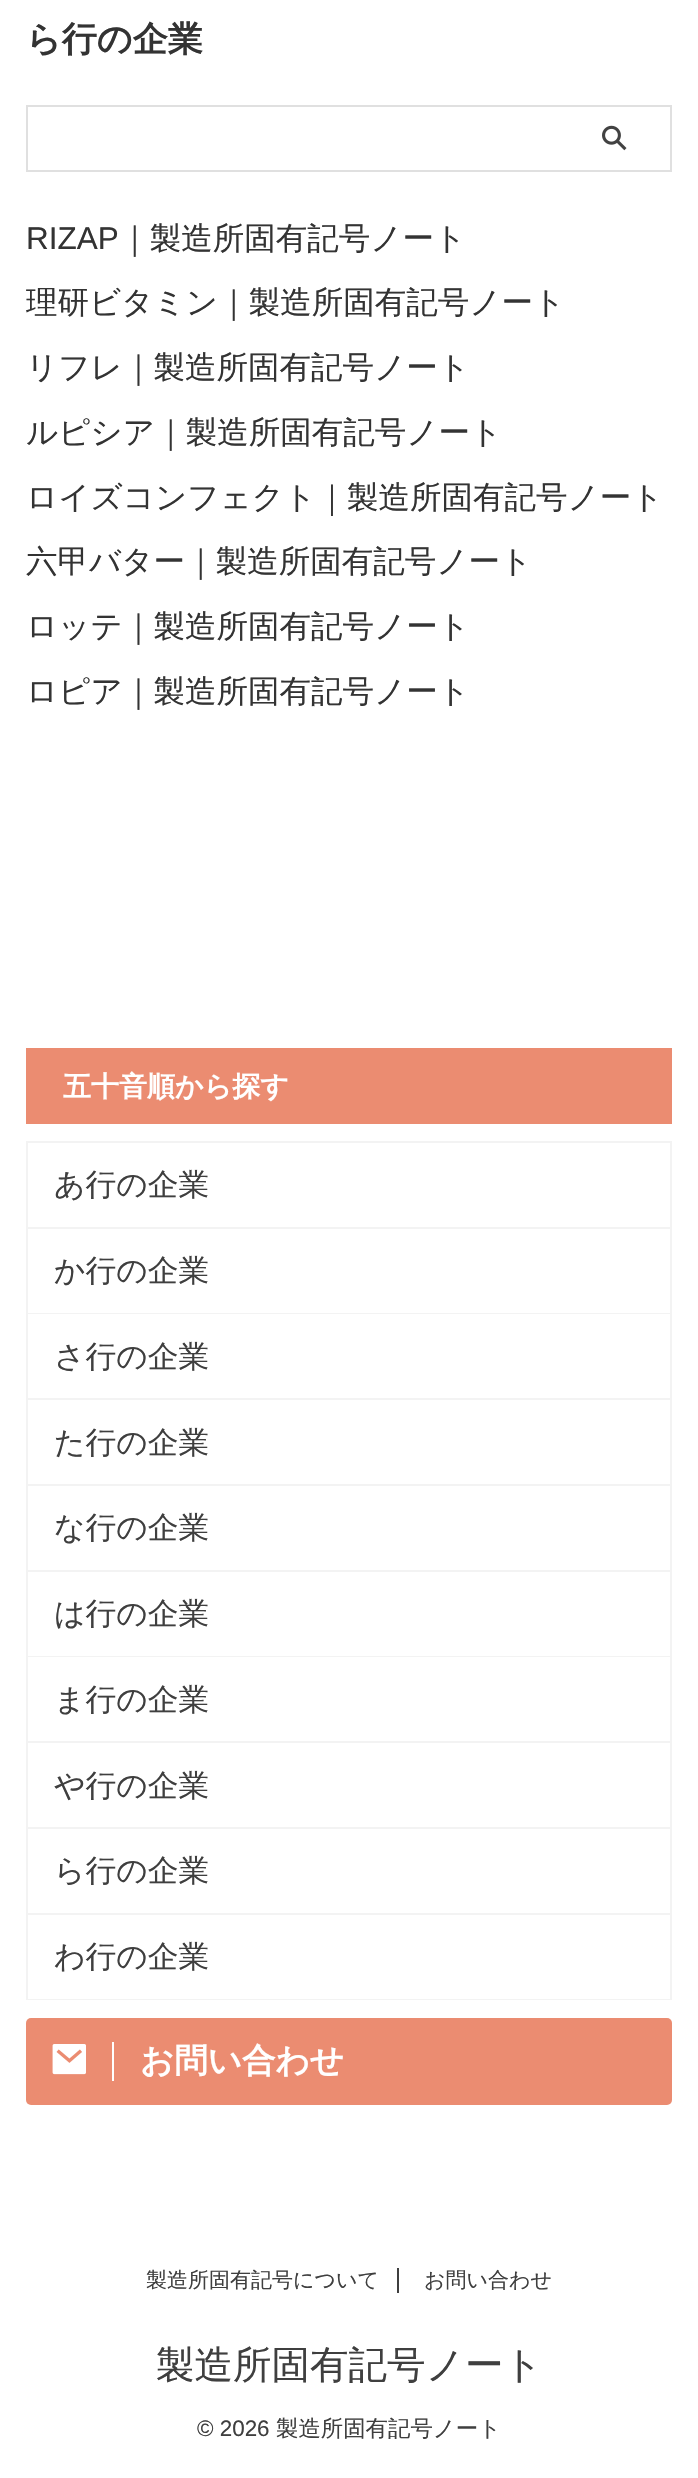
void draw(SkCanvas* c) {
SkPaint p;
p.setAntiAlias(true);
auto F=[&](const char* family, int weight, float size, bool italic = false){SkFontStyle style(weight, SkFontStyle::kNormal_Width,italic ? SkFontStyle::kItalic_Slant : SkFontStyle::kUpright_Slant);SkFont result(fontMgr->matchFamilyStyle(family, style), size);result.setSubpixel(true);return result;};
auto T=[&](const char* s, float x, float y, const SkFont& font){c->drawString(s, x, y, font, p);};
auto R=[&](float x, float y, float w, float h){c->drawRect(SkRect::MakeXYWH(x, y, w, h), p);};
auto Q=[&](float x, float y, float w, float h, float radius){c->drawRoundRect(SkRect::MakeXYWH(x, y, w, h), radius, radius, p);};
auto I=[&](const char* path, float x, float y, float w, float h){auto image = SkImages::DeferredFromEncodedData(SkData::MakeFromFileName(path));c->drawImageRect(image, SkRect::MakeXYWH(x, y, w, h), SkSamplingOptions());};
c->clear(0xffffffff);
auto f1 = F("WenQuanYi Zen Hei",700,35);
p.setColor(0xff333333);
T("ら行の企業",26,51,f1);
p.setStroke(true);
p.setStrokeWidth(2);
p.setColor(0xffe0e0e0);
c->drawRect(SkRect::MakeXYWH(27,106,644,65),p);
I("1.png",602,125,25,26);
auto f2 = F("Liberation Sans",400,31.5);
p.setStroke(false);
p.setColor(0xff333333);
T("RIZAP",26,249,f2);
auto f3 = F("WenQuanYi Zen Hei",500,31.5);
T("｜製造所固有記号ノート",119,249,f3);
T("理研ビタミン｜製造所固有記号ノート",26,313,f3);
T("リフレ｜製造所固有記号ノート",26,378,f3);
T("ルピシア｜製造所固有記号ノート",26,443,f3);
T("ロイズコンフェクト｜製造所固有記号ノート",26,508,f3);
T("六甲バター｜製造所固有記号ノート",26,572,f3);
T("ロッテ｜製造所固有記号ノート",26,637,f3);
T("ロピア｜製造所固有記号ノート",26,702,f3);
p.setColor(0xffeb8c71);
R(26,1048,646,76);
auto f4 = F("WenQuanYi Zen Hei",700,28);
p.setColor(0xffffffff);
T("五十音順から探す",63,1096,f4);
p.setColor(0xfff3f3f3);
R(26,1141,646,2);
R(670,1141,2,86);
R(26,1141,2,86);
auto f5 = F("WenQuanYi Zen Hei",500,30.75);
p.setColor(0xff3f3f3f);
T("あ行の企業",54,1195,f5);
p.setColor(0xfff3f3f3);
R(26,1227,646,2);
R(670,1227,2,86);
R(26,1227,2,86);
p.setColor(0xff3f3f3f);
T("か行の企業",54,1281,f5);
p.setColor(0xfff3f3f3);
R(26,1313,646,1);
R(670,1313,2,85);
R(26,1313,2,85);
p.setColor(0xff3f3f3f);
T("さ行の企業",54,1367,f5);
p.setColor(0xfff3f3f3);
R(26,1398,646,2);
R(670,1398,2,86);
R(26,1398,2,86);
p.setColor(0xff3f3f3f);
T("た行の企業",54,1453,f5);
p.setColor(0xfff3f3f3);
R(26,1484,646,2);
R(670,1484,2,86);
R(26,1484,2,86);
p.setColor(0xff3f3f3f);
T("な行の企業",54,1538,f5);
p.setColor(0xfff3f3f3);
R(26,1570,646,2);
R(670,1570,2,86);
R(26,1570,2,86);
p.setColor(0xff3f3f3f);
T("は行の企業",54,1624,f5);
p.setColor(0xfff3f3f3);
R(26,1656,646,1);
R(670,1656,2,85);
R(26,1656,2,85);
p.setColor(0xff3f3f3f);
T("ま行の企業",54,1710,f5);
p.setColor(0xfff3f3f3);
R(26,1741,646,2);
R(670,1741,2,86);
R(26,1741,2,86);
p.setColor(0xff3f3f3f);
T("や行の企業",54,1796,f5);
p.setColor(0xfff3f3f3);
R(26,1827,646,2);
R(670,1827,2,86);
R(26,1827,2,86);
p.setColor(0xff3f3f3f);
T("ら行の企業",54,1881,f5);
p.setStroke(true);
p.setColor(0xfff3f3f3);
c->drawRect(SkRect::MakeXYWH(27,1914,644,85),p);
p.setStroke(false);
p.setColor(0xffffffff);
R(28,1998,642,1);
p.setColor(0xff3f3f3f);
T("わ行の企業",54,1967,f5);
p.setColor(0xffeb8c71);
Q(26,2018,646,87,5);
p.setColor(0xffffffff);
R(112,2042,2,39);
I("2.png",52,2044,34,31);
auto f6 = F("WenQuanYi Zen Hei",700,33.5);
T("お問い合わせ",140,2072,f6);
auto f7 = F("WenQuanYi Zen Hei",500,21);
p.setColor(0xff3f3f3f);
T("製造所固有記号について",146,2287,f7);
R(397,2268,2,25);
T("お問い合わせ",424,2287,f7);
auto f8 = F("WenQuanYi Zen Hei",500,38.5);
T("製造所固有記号ノート",156,2378,f8);
auto f9 = F("Liberation Sans",400,22.4);
T("© 2026",197,2436,f9);
auto f10 = F("WenQuanYi Zen Hei",500,22.4);
T("製造所固有記号ノート",276,2436,f10);
}
